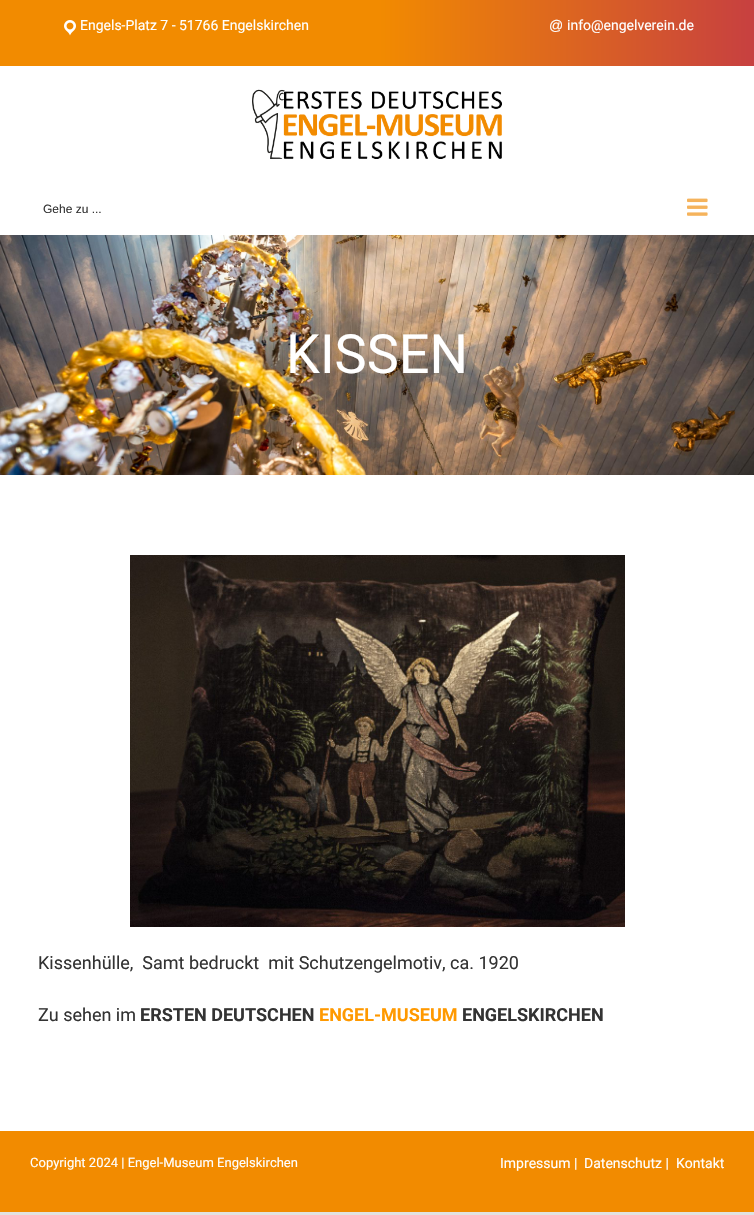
void draw(SkCanvas* c) {
SkPaint p;
p.setAntiAlias(true);
auto F=[&](const char* family, int weight, float size, bool italic = false){SkFontStyle style(weight, SkFontStyle::kNormal_Width,italic ? SkFontStyle::kItalic_Slant : SkFontStyle::kUpright_Slant);SkFont result(fontMgr->matchFamilyStyle(family, style), size);result.setSubpixel(true);return result;};
auto T=[&](const char* s, float x, float y, const SkFont& font){c->drawString(s, x, y, font, p);};
auto R=[&](float x, float y, float w, float h){c->drawRect(SkRect::MakeXYWH(x, y, w, h), p);};
auto I=[&](const char* path, float x, float y, float w, float h){auto image = SkImages::DeferredFromEncodedData(SkData::MakeFromFileName(path));c->drawImageRect(image, SkRect::MakeXYWH(x, y, w, h), SkSamplingOptions());};
c->clear(0xffe2e2e2);
p.setColor(0xffffffff);
R(0,66,754,1065);
{
const SkColor colors[] = {0xfff28b00,0xffc74040};
const float stops[] = {.5,1};
const SkPoint ends[] = {{0,33}, {754,33}};
p.setShader(SkGradientShader::MakeLinear(ends, colors, stops, 2, SkTileMode::kClamp));
p.setAlpha(255);
}
R(0,0,754,66);
I("1.png",64,20,12,16);
auto f1 = F("Roboto",400,14);
p.setShader(nullptr);
p.setColor(0xffffffff);
T("Engels-Platz 7 - 51766 Engelskirchen",80,30,f1);
auto f2 = F("Liberation Sans",400,14);
T("@",549,30,f2);
T("info@engelverein.de",567,30,f1);
I("2.png",252,89,250,70);
auto f3 = F("Liberation Sans",400,12);
p.setColor(0xff333333);
T("Gehe zu ...",43,213,f3);
I("3.png",687,198,21,18);
I("4.png",0,235,754,240);
auto f4 = F("Roboto",400,54);
p.setColor(0xffffffff);
T("KISSEN",286,373,f4);
I("5.png",130,555,495,372);
auto f5 = F("Roboto",400,18);
p.setColor(0xff333333);
T("Kissenhülle,  Samt bedruckt  mit Schutzengelmotiv, ca. 1920",38,969,f5);
T("Zu sehen im",38,1021,f5);
auto f6 = F("Roboto",700,18);
T("ERSTEN DEUTSCHEN",140,1021,f6);
p.setColor(0xffff9900);
T("ENGEL-MUSEUM",319,1021,f6);
p.setColor(0xff333333);
T("ENGELSKIRCHEN",462,1021,f6);
p.setColor(0xfff28b00);
R(0,1131,754,81);
auto f7 = F("Roboto",400,13);
p.setColor(0xffffffff);
T("Copyright 2024 | Engel-Museum Engelskirchen",30,1167,f7);
T("Impressum |",500,1168,f1);
T("Datenschutz |",584,1168,f1);
T("Kontakt",676,1168,f1);
}
